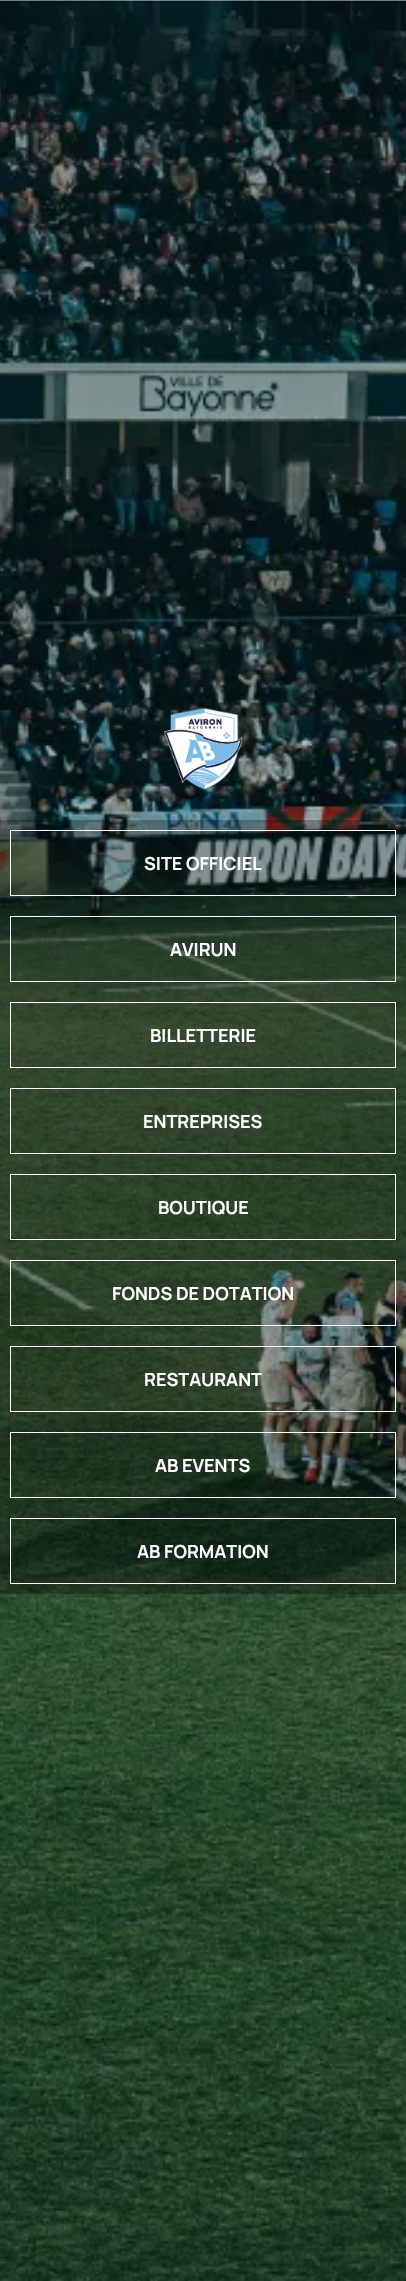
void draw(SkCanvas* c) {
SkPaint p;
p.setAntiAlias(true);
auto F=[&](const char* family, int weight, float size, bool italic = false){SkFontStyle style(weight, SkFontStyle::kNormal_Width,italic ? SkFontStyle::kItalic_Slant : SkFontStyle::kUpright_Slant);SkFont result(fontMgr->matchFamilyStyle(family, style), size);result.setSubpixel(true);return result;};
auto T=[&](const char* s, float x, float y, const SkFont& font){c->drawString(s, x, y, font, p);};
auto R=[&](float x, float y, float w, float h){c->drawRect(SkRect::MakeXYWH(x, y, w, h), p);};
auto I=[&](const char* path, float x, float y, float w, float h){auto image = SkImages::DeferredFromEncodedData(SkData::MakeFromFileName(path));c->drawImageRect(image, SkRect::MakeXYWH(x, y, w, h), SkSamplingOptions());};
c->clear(0xffe6e6e6);
I("1.png",0,0,406,2281);
I("2.png",163,707,80,83);
p.setColor(0x4d000000);
R(0,820,406,774);
p.setStroke(true);
p.setStrokeWidth(1);
p.setColor(0xffffffff);
c->drawRect(SkRect::MakeXYWH(10.5,830.5,385,65),p);
auto f1 = F("Manrope",700,18);
p.setStroke(false);
T("SITE OFFICIEL",144,870,f1);
p.setStroke(true);
c->drawRect(SkRect::MakeXYWH(10.5,916.5,385,65),p);
p.setStroke(false);
T("AVIRUN",170,956,f1);
p.setStroke(true);
c->drawRect(SkRect::MakeXYWH(10.5,1002.5,385,65),p);
p.setStroke(false);
T("BILLETTERIE",150,1042,f1);
p.setStroke(true);
c->drawRect(SkRect::MakeXYWH(10.5,1088.5,385,65),p);
p.setStroke(false);
T("ENTREPRISES",143,1128,f1);
p.setStroke(true);
c->drawRect(SkRect::MakeXYWH(10.5,1174.5,385,65),p);
p.setStroke(false);
T("BOUTIQUE",158,1214,f1);
p.setStroke(true);
c->drawRect(SkRect::MakeXYWH(10.5,1260.5,385,65),p);
p.setStroke(false);
T("FONDS DE DOTATION",112,1300,f1);
p.setStroke(true);
c->drawRect(SkRect::MakeXYWH(10.5,1346.5,385,65),p);
p.setStroke(false);
T("RESTAURANT",144,1386,f1);
p.setStroke(true);
c->drawRect(SkRect::MakeXYWH(10.5,1432.5,385,65),p);
p.setStroke(false);
T("AB EVENTS",155,1472,f1);
p.setStroke(true);
c->drawRect(SkRect::MakeXYWH(10.5,1518.5,385,65),p);
p.setStroke(false);
T("AB FORMATION",137,1558,f1);
}
